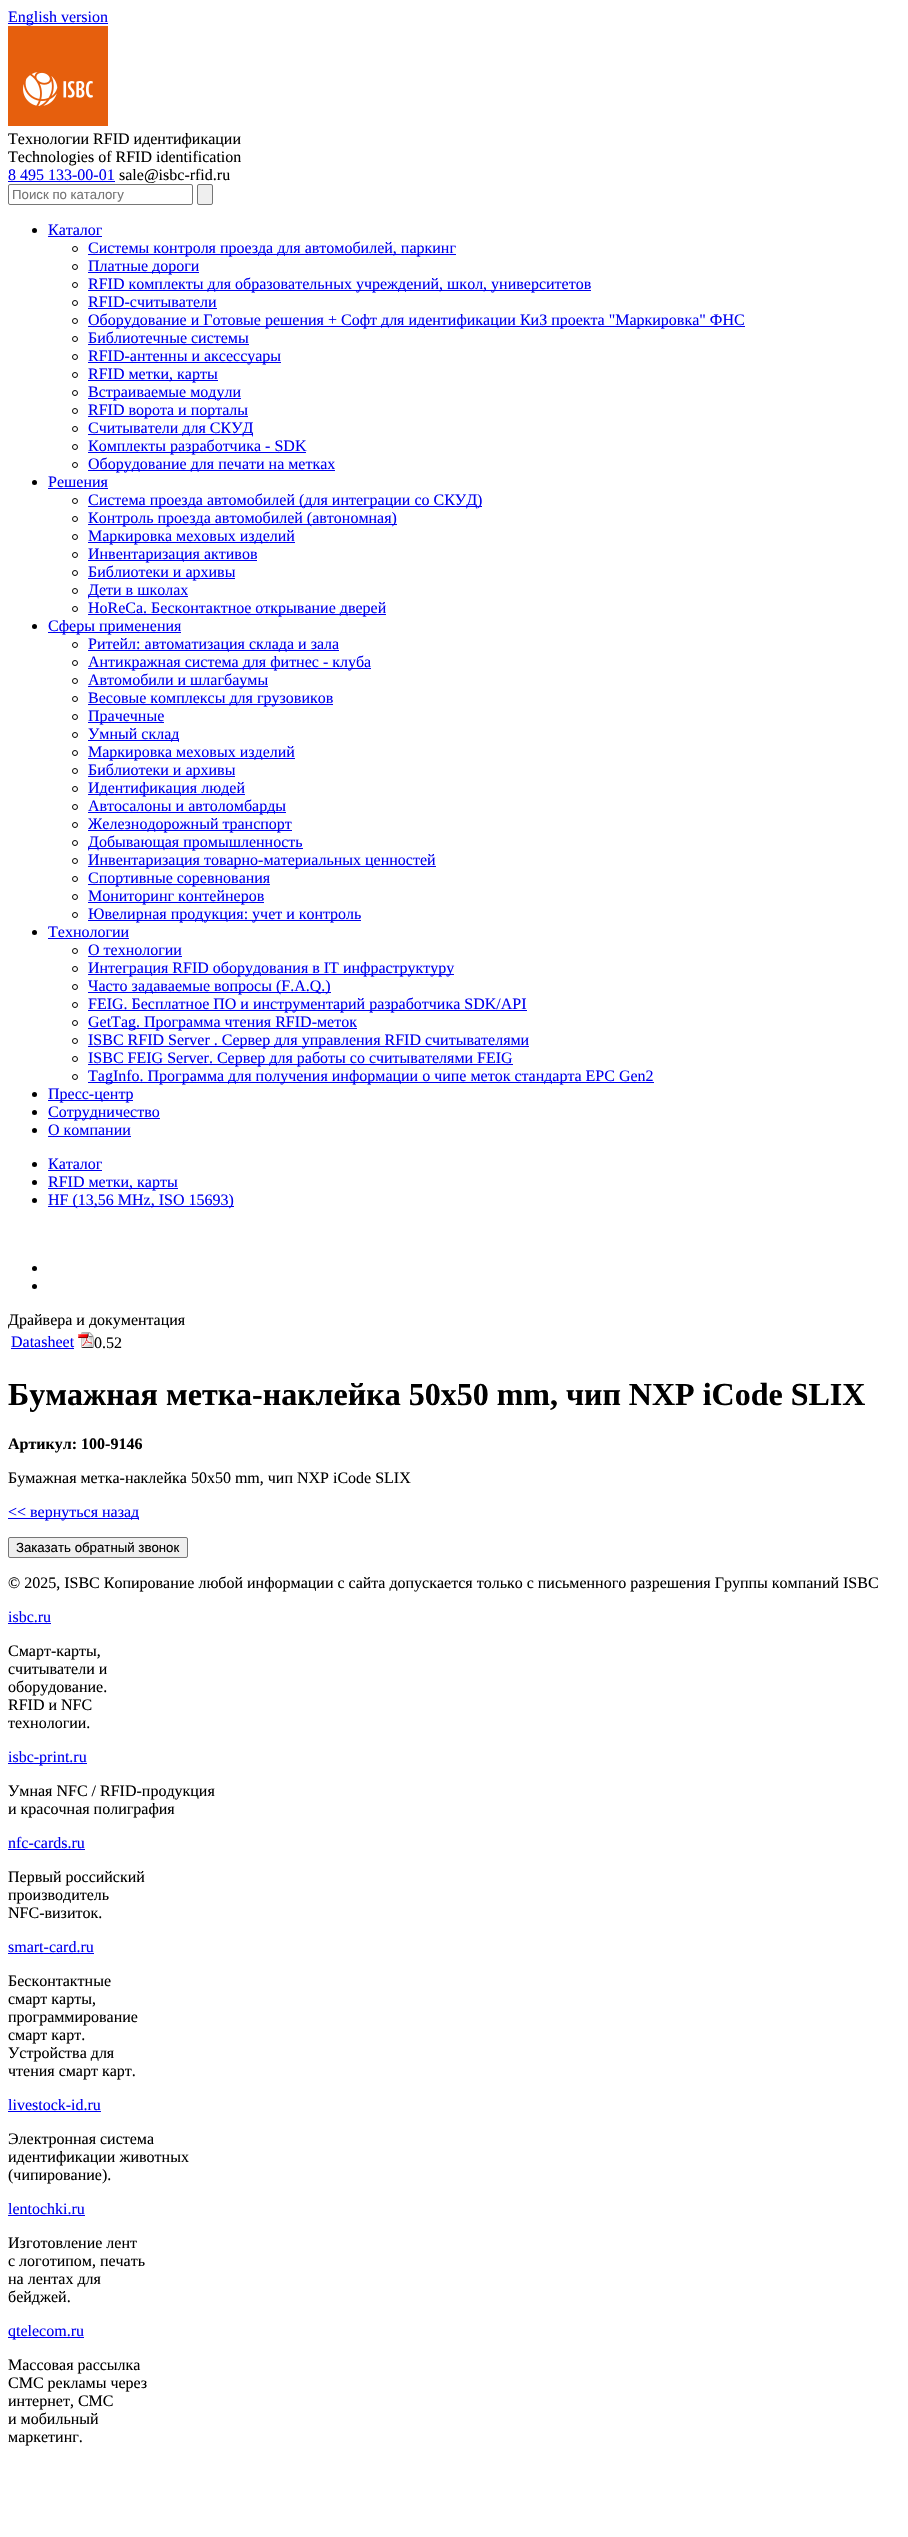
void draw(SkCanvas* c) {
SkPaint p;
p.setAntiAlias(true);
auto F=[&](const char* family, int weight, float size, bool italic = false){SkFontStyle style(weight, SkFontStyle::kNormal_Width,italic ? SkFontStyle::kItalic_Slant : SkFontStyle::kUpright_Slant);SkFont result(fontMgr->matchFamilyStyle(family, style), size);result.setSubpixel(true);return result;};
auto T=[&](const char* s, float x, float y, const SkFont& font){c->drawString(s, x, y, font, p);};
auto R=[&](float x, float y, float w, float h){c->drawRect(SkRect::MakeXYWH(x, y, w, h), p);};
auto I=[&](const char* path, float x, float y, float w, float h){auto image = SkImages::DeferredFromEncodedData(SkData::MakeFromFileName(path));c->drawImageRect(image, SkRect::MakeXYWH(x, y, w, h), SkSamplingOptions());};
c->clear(0xffffffff);
p.setColor(0xff0000ee);
R(8,23,100,1);
auto f1 = F("Liberation Serif",400,16);
T("English version",8,22,f1);
I("1.png",8,26,100,100);
p.setColor(0xff000000);
T("Технологии RFID идентификации",8,144,f1);
T("Technologies of RFID identification",8,162,f1);
p.setColor(0xff0000ee);
T("8 495 133-00-01",8,180,f1);
R(8,181,107,1);
p.setColor(0xff000000);
T("sale@isbc-rfid.ru",119,180,f1);
p.setStroke(true);
p.setStrokeWidth(1);
p.setColor(0xff767676);
c->drawRoundRect(SkRect::MakeXYWH(8.5,184.5,184,20),1.5,1.5,p);
auto f2 = F("Liberation Sans",400,13.25);
p.setStroke(false);
p.setColor(0xff757575);
T("Поиск по каталогу",12,199,f2);
p.setColor(0xffefefef);
c->drawRoundRect(SkRect::MakeXYWH(197.5,184.5,15,20),1.5,1.5,p);
p.setStroke(true);
p.setColor(0xff767676);
c->drawRoundRect(SkRect::MakeXYWH(197.5,184.5,15,20),1.5,1.5,p);
p.setStroke(false);
p.setColor(0xff000000);
c->drawCircle(34.5,230.5,2.5,p);
p.setColor(0xff0000ee);
T("Каталог",48,235,f1);
R(48,236,54,1);
p.setStroke(true);
p.setColor(0xff000000);
c->drawCircle(75,249,2.5,p);
p.setStroke(false);
p.setColor(0xff0000ee);
R(88,254,368,1);
T("Системы контроля проезда для автомобилей, паркинг",88,253,f1);
p.setStroke(true);
p.setColor(0xff000000);
c->drawCircle(75,267,2.5,p);
p.setStroke(false);
p.setColor(0xff0000ee);
R(88,272,111,1);
T("Платные дороги",88,271,f1);
p.setStroke(true);
p.setColor(0xff000000);
c->drawCircle(75,285,2.5,p);
p.setStroke(false);
p.setColor(0xff0000ee);
R(88,290,503,1);
T("RFID комплекты для образовательных учреждений, школ, университетов",88,289,f1);
p.setStroke(true);
p.setColor(0xff000000);
c->drawCircle(75,303,2.5,p);
p.setStroke(false);
p.setColor(0xff0000ee);
T("RFID-считыватели",88,307,f1);
R(88,308,129,1);
p.setStroke(true);
p.setColor(0xff000000);
c->drawCircle(75,321,2.5,p);
p.setStroke(false);
p.setColor(0xff0000ee);
R(88,326,657,1);
T("Оборудование и Готовые решения + Софт для идентификации КиЗ проекта \"Маркировка\" ФНС",88,325,f1);
p.setStroke(true);
p.setColor(0xff000000);
c->drawCircle(75,339,2.5,p);
p.setStroke(false);
p.setColor(0xff0000ee);
T("Библиотечные системы",88,343,f1);
R(88,344,161,1);
p.setStroke(true);
p.setColor(0xff000000);
c->drawCircle(75,357,2.5,p);
p.setStroke(false);
p.setColor(0xff0000ee);
R(88,362,193,1);
T("RFID-антенны и аксессуары",88,361,f1);
p.setStroke(true);
p.setColor(0xff000000);
c->drawCircle(75,375,2.5,p);
p.setStroke(false);
p.setColor(0xff0000ee);
R(88,380,130,1);
T("RFID метки, карты",88,379,f1);
p.setStroke(true);
p.setColor(0xff000000);
c->drawCircle(75,393,2.5,p);
p.setStroke(false);
p.setColor(0xff0000ee);
R(88,398,153,1);
T("Встраиваемые модули",88,397,f1);
p.setStroke(true);
p.setColor(0xff000000);
c->drawCircle(75,411,2.5,p);
p.setStroke(false);
p.setColor(0xff0000ee);
R(88,416,160,1);
T("RFID ворота и порталы",88,415,f1);
p.setStroke(true);
p.setColor(0xff000000);
c->drawCircle(75,429,2.5,p);
p.setStroke(false);
p.setColor(0xff0000ee);
R(88,434,165,1);
T("Считыватели для СКУД",88,433,f1);
p.setStroke(true);
p.setColor(0xff000000);
c->drawCircle(75,447,2.5,p);
p.setStroke(false);
p.setColor(0xff0000ee);
R(88,452,218,1);
T("Комплекты разработчика - SDK",88,451,f1);
p.setStroke(true);
p.setColor(0xff000000);
c->drawCircle(75,465,2.5,p);
p.setStroke(false);
p.setColor(0xff0000ee);
R(88,470,247,1);
T("Оборудование для печати на метках",88,469,f1);
p.setColor(0xff000000);
c->drawCircle(34.5,482.5,2.5,p);
p.setColor(0xff0000ee);
T("Решения",48,487,f1);
R(48,488,60,1);
p.setStroke(true);
p.setColor(0xff000000);
c->drawCircle(75,501,2.5,p);
p.setStroke(false);
p.setColor(0xff0000ee);
R(88,506,394,1);
T("Система проезда автомобилей (для интеграции со СКУД)",88,505,f1);
p.setStroke(true);
p.setColor(0xff000000);
c->drawCircle(75,519,2.5,p);
p.setStroke(false);
p.setColor(0xff0000ee);
R(88,524,309,1);
T("Контроль проезда автомобилей (автономная)",88,523,f1);
p.setStroke(true);
p.setColor(0xff000000);
c->drawCircle(75,537,2.5,p);
p.setStroke(false);
p.setColor(0xff0000ee);
R(88,542,207,1);
T("Маркировка меховых изделий",88,541,f1);
p.setStroke(true);
p.setColor(0xff000000);
c->drawCircle(75,555,2.5,p);
p.setStroke(false);
p.setColor(0xff0000ee);
R(88,560,169,1);
T("Инвентаризация активов",88,559,f1);
p.setStroke(true);
p.setColor(0xff000000);
c->drawCircle(75,573,2.5,p);
p.setStroke(false);
p.setColor(0xff0000ee);
R(88,578,147,1);
T("Библиотеки и архивы",88,577,f1);
p.setStroke(true);
p.setColor(0xff000000);
c->drawCircle(75,591,2.5,p);
p.setStroke(false);
p.setColor(0xff0000ee);
R(88,596,100,1);
T("Дети в школах",88,595,f1);
p.setStroke(true);
p.setColor(0xff000000);
c->drawCircle(75,609,2.5,p);
p.setStroke(false);
p.setColor(0xff0000ee);
R(88,614,298,1);
T("HoReCa. Бесконтактное открывание дверей",88,613,f1);
p.setColor(0xff000000);
c->drawCircle(34.5,626.5,2.5,p);
p.setColor(0xff0000ee);
R(48,632,133,1);
T("Сферы применения",48,631,f1);
p.setStroke(true);
p.setColor(0xff000000);
c->drawCircle(75,645,2.5,p);
p.setStroke(false);
p.setColor(0xff0000ee);
R(88,650,251,1);
T("Ритейл: автоматизация склада и зала",88,649,f1);
p.setStroke(true);
p.setColor(0xff000000);
c->drawCircle(75,663,2.5,p);
p.setStroke(false);
p.setColor(0xff0000ee);
R(88,668,283,1);
T("Антикражная система для фитнес - клуба",88,667,f1);
p.setStroke(true);
p.setColor(0xff000000);
c->drawCircle(75,681,2.5,p);
p.setStroke(false);
p.setColor(0xff0000ee);
R(88,686,180,1);
T("Автомобили и шлагбаумы",88,685,f1);
p.setStroke(true);
p.setColor(0xff000000);
c->drawCircle(75,699,2.5,p);
p.setStroke(false);
p.setColor(0xff0000ee);
R(88,704,245,1);
T("Весовые комплексы для грузовиков",88,703,f1);
p.setStroke(true);
p.setColor(0xff000000);
c->drawCircle(75,717,2.5,p);
p.setStroke(false);
p.setColor(0xff0000ee);
R(88,722,76,1);
T("Прачечные",88,721,f1);
p.setStroke(true);
p.setColor(0xff000000);
c->drawCircle(75,735,2.5,p);
p.setStroke(false);
p.setColor(0xff0000ee);
R(88,740,91,1);
T("Умный склад",88,739,f1);
p.setStroke(true);
p.setColor(0xff000000);
c->drawCircle(75,753,2.5,p);
p.setStroke(false);
p.setColor(0xff0000ee);
R(88,758,207,1);
T("Маркировка меховых изделий",88,757,f1);
p.setStroke(true);
p.setColor(0xff000000);
c->drawCircle(75,771,2.5,p);
p.setStroke(false);
p.setColor(0xff0000ee);
R(88,776,147,1);
T("Библиотеки и архивы",88,775,f1);
p.setStroke(true);
p.setColor(0xff000000);
c->drawCircle(75,789,2.5,p);
p.setStroke(false);
p.setColor(0xff0000ee);
R(88,794,157,1);
T("Идентификация людей",88,793,f1);
p.setStroke(true);
p.setColor(0xff000000);
c->drawCircle(75,807,2.5,p);
p.setStroke(false);
p.setColor(0xff0000ee);
R(88,812,198,1);
T("Автосалоны и автоломбарды",88,811,f1);
p.setStroke(true);
p.setColor(0xff000000);
c->drawCircle(75,825,2.5,p);
p.setStroke(false);
p.setColor(0xff0000ee);
R(88,830,204,1);
T("Железнодорожный транспорт",88,829,f1);
p.setStroke(true);
p.setColor(0xff000000);
c->drawCircle(75,843,2.5,p);
p.setStroke(false);
p.setColor(0xff0000ee);
R(88,848,215,1);
T("Добывающая промышленность",88,847,f1);
p.setStroke(true);
p.setColor(0xff000000);
c->drawCircle(75,861,2.5,p);
p.setStroke(false);
p.setColor(0xff0000ee);
R(88,866,348,1);
T("Инвентаризация товарно-материальных ценностей",88,865,f1);
p.setStroke(true);
p.setColor(0xff000000);
c->drawCircle(75,879,2.5,p);
p.setStroke(false);
p.setColor(0xff0000ee);
R(88,884,182,1);
T("Спортивные соревнования",88,883,f1);
p.setStroke(true);
p.setColor(0xff000000);
c->drawCircle(75,897,2.5,p);
p.setStroke(false);
p.setColor(0xff0000ee);
R(88,902,176,1);
T("Мониторинг контейнеров",88,901,f1);
p.setStroke(true);
p.setColor(0xff000000);
c->drawCircle(75,915,2.5,p);
p.setStroke(false);
p.setColor(0xff0000ee);
R(88,920,273,1);
T("Ювелирная продукция: учет и контроль",88,919,f1);
p.setColor(0xff000000);
c->drawCircle(34.5,932.5,2.5,p);
p.setColor(0xff0000ee);
T("Технологии",48,937,f1);
R(48,938,81,1);
p.setStroke(true);
p.setColor(0xff000000);
c->drawCircle(75,951,2.5,p);
p.setStroke(false);
p.setColor(0xff0000ee);
T("О технологии",88,955,f1);
R(88,956,94,1);
p.setStroke(true);
p.setColor(0xff000000);
c->drawCircle(75,969,2.5,p);
p.setStroke(false);
p.setColor(0xff0000ee);
R(88,974,366,1);
T("Интеграция RFID оборудования в IT инфраструктуру",88,973,f1);
p.setStroke(true);
p.setColor(0xff000000);
c->drawCircle(75,987,2.5,p);
p.setStroke(false);
p.setColor(0xff0000ee);
R(88,992,243,1);
T("Часто задаваемые вопросы (F.A.Q.)",88,991,f1);
p.setStroke(true);
p.setColor(0xff000000);
c->drawCircle(75,1005,2.5,p);
p.setStroke(false);
p.setColor(0xff0000ee);
R(88,1010,439,1);
T("FEIG. Бесплатное ПО и инструментарий разработчика SDK/API",88,1009,f1);
p.setStroke(true);
p.setColor(0xff000000);
c->drawCircle(75,1023,2.5,p);
p.setStroke(false);
p.setColor(0xff0000ee);
R(88,1028,269,1);
T("GetTag. Программа чтения RFID-меток",88,1027,f1);
p.setStroke(true);
p.setColor(0xff000000);
c->drawCircle(75,1041,2.5,p);
p.setStroke(false);
p.setColor(0xff0000ee);
R(88,1046,441,1);
T("ISBC RFID Server . Cервер для управления RFID считывателями",88,1045,f1);
p.setStroke(true);
p.setColor(0xff000000);
c->drawCircle(75,1059,2.5,p);
p.setStroke(false);
p.setColor(0xff0000ee);
R(88,1064,425,1);
T("ISBC FEIG Server. Сервер для работы со считывателями FEIG",88,1063,f1);
p.setStroke(true);
p.setColor(0xff000000);
c->drawCircle(75,1077,2.5,p);
p.setStroke(false);
p.setColor(0xff0000ee);
R(88,1082,566,1);
T("TagInfo. Программа для получения информации о чипе меток стандарта EPC Gen2",88,1081,f1);
p.setColor(0xff000000);
c->drawCircle(34.5,1094.5,2.5,p);
p.setColor(0xff0000ee);
R(48,1100,85,1);
T("Пресс-центр",48,1099,f1);
p.setColor(0xff000000);
c->drawCircle(34.5,1112.5,2.5,p);
p.setColor(0xff0000ee);
R(48,1118,112,1);
T("Сотрудничество",48,1117,f1);
p.setColor(0xff000000);
c->drawCircle(34.5,1130.5,2.5,p);
p.setColor(0xff0000ee);
T("О компании",48,1135,f1);
R(48,1136,83,1);
p.setColor(0xff000000);
c->drawCircle(34.5,1164.5,2.5,p);
p.setColor(0xff0000ee);
T("Каталог",48,1169,f1);
R(48,1170,54,1);
p.setColor(0xff000000);
c->drawCircle(34.5,1182.5,2.5,p);
p.setColor(0xff0000ee);
R(48,1188,130,1);
T("RFID метки, карты",48,1187,f1);
p.setColor(0xff000000);
c->drawCircle(34.5,1200.5,2.5,p);
p.setColor(0xff0000ee);
R(48,1206,186,1);
T("HF (13,56 MHz, ISO 15693)",48,1205,f1);
p.setColor(0xff000000);
c->drawCircle(34.5,1268.5,2.5,p);
c->drawCircle(34.5,1286.5,2.5,p);
T("Драйвера и документация",8,1325,f1);
p.setColor(0xff0000ee);
T("Datasheet",11,1347,f1);
R(11,1348,63,1);
I("2.png",78,1332,16,16);
p.setColor(0xff000000);
T("0.52",94,1348,f1);
auto f3 = F("Liberation Serif",700,32);
T("Бумажная метка-наклейка 50x50 mm, чип NXP iCode SLIX",8,1405,f3);
auto f4 = F("Liberation Serif",700,16);
T("Артикул: 100-9146",8,1449,f4);
T("Бумажная метка-наклейка 50x50 mm, чип NXP iCode SLIX",8,1483,f1);
p.setColor(0xff0000ee);
R(8,1518,131,1);
T("<< вернуться назад",8,1517,f1);
p.setColor(0xffefefef);
c->drawRoundRect(SkRect::MakeXYWH(8.5,1537.5,179,20),1.5,1.5,p);
p.setStroke(true);
p.setColor(0xff767676);
c->drawRoundRect(SkRect::MakeXYWH(8.5,1537.5,179,20),1.5,1.5,p);
p.setStroke(false);
p.setColor(0xff000000);
T("Заказать обратный звонок",16,1552,f2);
T("© 2025, ISBC Копирование любой информации с сайта допускается только с письменного разрешения Группы компаний ISBC",8,1588,f1);
p.setColor(0xff0000ee);
T("isbc.ru",8,1622,f1);
R(8,1623,43,1);
p.setColor(0xff000000);
T("Смарт-карты,",8,1656,f1);
T("считыватели и",8,1674,f1);
T("оборудование.",8,1692,f1);
T("RFID и NFC",8,1710,f1);
T("технологии.",8,1728,f1);
p.setColor(0xff0000ee);
R(8,1763,79,1);
T("isbc-print.ru",8,1762,f1);
p.setColor(0xff000000);
T("Умная NFC / RFID-продукция",8,1796,f1);
T("и красочная полиграфия",8,1814,f1);
p.setColor(0xff0000ee);
T("nfc-cards.ru",8,1848,f1);
R(8,1849,77,1);
p.setColor(0xff000000);
T("Первый российский",8,1882,f1);
T("производитель",8,1900,f1);
T("NFC-визиток.",8,1918,f1);
p.setColor(0xff0000ee);
T("smart-card.ru",8,1952,f1);
R(8,1953,86,1);
p.setColor(0xff000000);
T("Бесконтактные",8,1986,f1);
T("смарт карты,",8,2004,f1);
T("программирование",8,2022,f1);
T("смарт карт.",8,2040,f1);
T("Устройства для",8,2058,f1);
T("чтения смарт карт.",8,2076,f1);
p.setColor(0xff0000ee);
T("livestock-id.ru",8,2110,f1);
R(8,2111,93,1);
p.setColor(0xff000000);
T("Электронная система",8,2144,f1);
T("идентификации животных",8,2162,f1);
T("(чипирование).",8,2180,f1);
p.setColor(0xff0000ee);
T("lentochki.ru",8,2214,f1);
R(8,2215,77,1);
p.setColor(0xff000000);
T("Изготовление лент",8,2248,f1);
T("с логотипом, печать",8,2266,f1);
T("на лентах для",8,2284,f1);
T("бейджей.",8,2302,f1);
p.setColor(0xff0000ee);
R(8,2337,76,1);
T("qtelecom.ru",8,2336,f1);
p.setColor(0xff000000);
T("Массовая рассылка",8,2370,f1);
T("СМС рекламы через",8,2388,f1);
T("интернет, СМС",8,2406,f1);
T("и мобильный",8,2424,f1);
T("маркетинг.",8,2442,f1);
}
